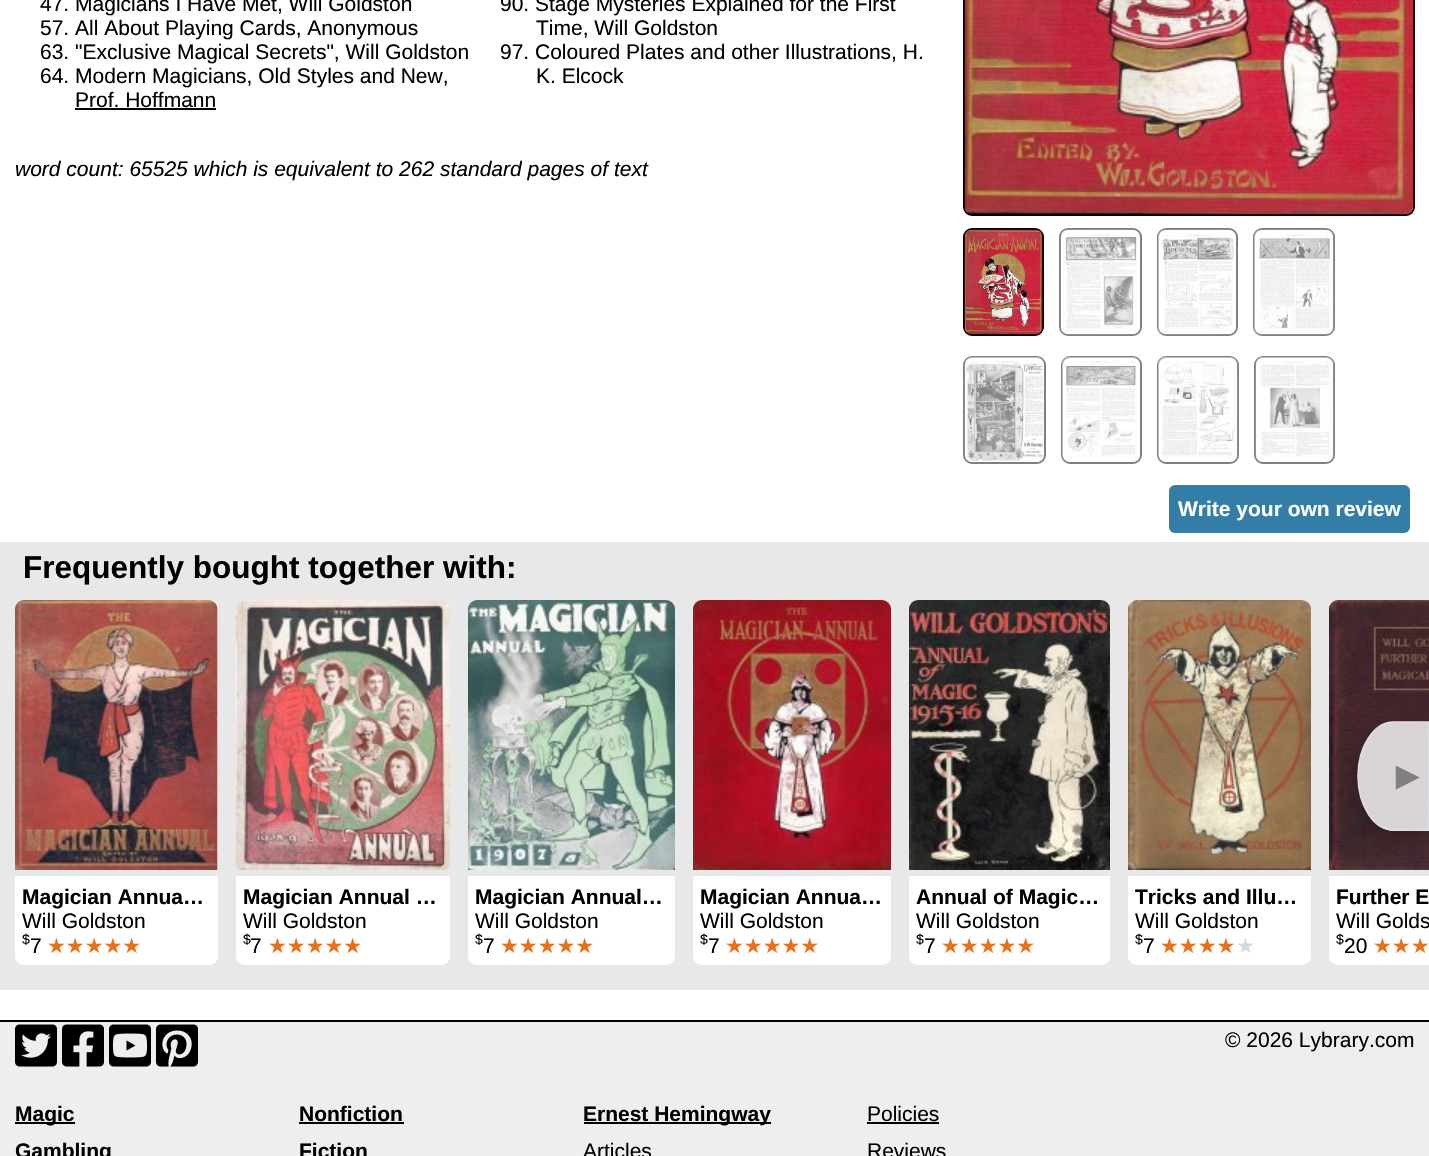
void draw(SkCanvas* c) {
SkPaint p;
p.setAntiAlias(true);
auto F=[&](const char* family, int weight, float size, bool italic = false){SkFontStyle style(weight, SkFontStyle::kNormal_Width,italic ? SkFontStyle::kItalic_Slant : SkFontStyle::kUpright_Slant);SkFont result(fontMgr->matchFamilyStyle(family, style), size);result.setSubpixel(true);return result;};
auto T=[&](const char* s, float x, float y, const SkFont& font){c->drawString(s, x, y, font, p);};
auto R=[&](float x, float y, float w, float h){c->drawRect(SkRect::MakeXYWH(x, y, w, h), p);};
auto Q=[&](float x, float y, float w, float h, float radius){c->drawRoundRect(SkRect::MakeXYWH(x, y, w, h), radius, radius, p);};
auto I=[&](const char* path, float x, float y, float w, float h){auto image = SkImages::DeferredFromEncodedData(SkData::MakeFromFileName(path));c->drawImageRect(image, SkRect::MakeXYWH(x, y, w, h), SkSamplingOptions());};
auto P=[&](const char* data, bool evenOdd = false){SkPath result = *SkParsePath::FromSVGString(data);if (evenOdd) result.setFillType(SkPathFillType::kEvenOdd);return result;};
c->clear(0xffeeeeee);
p.setColor(0xffffffff);
R(0,0,1429,1020);
auto f1 = F("Liberation Sans",400,21);
p.setColor(0xff000000);
T("47. Magicians I Have Met, Will Goldston",40,11,f1);
T("90. Stage Mysteries Explained for the First",500,11,f1);
T("Time, Will Goldston",536,35,f1);
T("57. All About Playing Cards, Anonymous",40,35,f1);
T("63. \"Exclusive Magical Secrets\", Will Goldston",40,59,f1);
T("97. Coloured Plates and other Illustrations, H.",500,59,f1);
T("K. Elcock",536,83,f1);
T("64. Modern Magicians, Old Styles and New,",40,83,f1);
T("Prof. Hoffmann",75,107,f1);
R(75,108,141,2);
auto f2 = F("Liberation Sans",400,21,true);
T("word count: 65525 which is equivalent to 262 standard pages of text",15,176,f2);
p.setStroke(true);
p.setStrokeWidth(2);
c->drawRoundRect(SkRect::MakeXYWH(964,-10,450,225),8,8,p);
I("1.png",964,0,449,215);
c->drawRoundRect(SkRect::MakeXYWH(964,229,79,106),8,8,p);
p.setColor(0xff808080);
c->drawRoundRect(SkRect::MakeXYWH(1060,229,81,106),8,8,p);
c->drawRoundRect(SkRect::MakeXYWH(1158,229,79,106),8,8,p);
c->drawRoundRect(SkRect::MakeXYWH(1254,229,80,106),8,8,p);
I("2.png",964,229,79,106);
I("3.png",1060,229,80,106);
I("4.png",1158,229,78,106);
I("5.png",1254,229,80,106);
c->drawRoundRect(SkRect::MakeXYWH(964,357,81,106),8,8,p);
c->drawRoundRect(SkRect::MakeXYWH(1062,357,79,106),8,8,p);
c->drawRoundRect(SkRect::MakeXYWH(1158,357,80,106),8,8,p);
c->drawRoundRect(SkRect::MakeXYWH(1255,357,79,106),8,8,p);
I("6.png",964,357,80,105);
I("7.png",1062,357,78,105);
I("8.png",1158,357,80,105);
I("9.png",1255,357,79,105);
p.setStroke(false);
p.setColor(0xff337da6);
Q(1169,485,241,48,6);
auto f3 = F("Liberation Sans",700,21);
p.setColor(0xffffffff);
T("Write your own review",1178,516,f3);
p.setColor(0xffe8e8e8);
R(0,542,1429,448);
auto f4 = F("Liberation Sans",700,31.5);
p.setColor(0xff000000);
T("Frequently bought together with:",23,578,f4);
I("16.png",1329,600,100,270);
c->save();
c->clipPath(P("M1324 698h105v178h-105zm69.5 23.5h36v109.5h-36c-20 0-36-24.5-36-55c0-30 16-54.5 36-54.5z",true),true);
p.setColor(0x33000000);
p.setMaskFilter(SkMaskFilter::MakeBlur(kNormal_SkBlurStyle, 11));
c->drawRoundRect(SkRect::MakeXYWH(1358,732,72,110),36,36,p);
p.setMaskFilter(nullptr);
c->restore();
p.setColor(0xccffffff);
c->drawPath(P("M1394 722h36v109h-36c-20 0-36-25-36-55c0-30 16-54 36-54z"),p);
p.setStroke(true);
p.setStrokeWidth(1.5);
p.setColor(0xffdfe1e5);
c->drawPath(P("M1393.5 722h35.5v108h-35.5c-19.5 0-35.5-24-35.5-54c0-29.5 16-54 35.5-54z"),p);
auto f5 = F("Liberation Sans",400,40);
p.setStroke(false);
p.setColor(0xff808080);
T("►",1388,789,f5);
I("10.png",15,600,203,270);
p.setColor(0xffffffff);
c->drawPath(P("M15 876h203v80c0 5-4 9-9 9h-185c-5 0-9-4-9-9z"),p);
p.setColor(0xff000000);
T("Magician Annua…",22,904,f3);
T("Will Goldston",22,928,f1);
auto f6 = F("Liberation Sans",400,14);
T("$",22,944,f6);
T("7",30,953,f1);
auto f7 = F("DejaVu Sans",400,21);
p.setColor(0xffe7711b);
T("★★★★★",47,953,f7);
I("11.png",235,600,215,270);
p.setColor(0xffffffff);
c->drawPath(P("M236 876h214v80c0 5-4 9-9 9h-196c-5 0-9-4-9-9z"),p);
p.setColor(0xff000000);
T("Magician Annual …",243,904,f3);
T("Will Goldston",243,928,f1);
T("$",243,944,f6);
T("7",250,953,f1);
p.setColor(0xffe7711b);
T("★★★★★",268,953,f7);
I("12.png",468,600,207,270);
p.setColor(0xffffffff);
c->drawPath(P("M468 876h207v80c0 5-4 9-9 9h-189c-5 0-9-4-9-9z"),p);
p.setColor(0xff000000);
T("Magician Annual…",475,904,f3);
T("Will Goldston",475,928,f1);
T("$",475,944,f6);
T("7",483,953,f1);
p.setColor(0xffe7711b);
T("★★★★★",500,953,f7);
I("13.png",693,600,198,270);
p.setColor(0xffffffff);
c->drawPath(P("M693 876h198v80c0 5-4 9-9 9h-180c-5 0-9-4-9-9z"),p);
p.setColor(0xff000000);
T("Magician Annua…",700,904,f3);
T("Will Goldston",700,928,f1);
T("$",700,944,f6);
T("7",708,953,f1);
p.setColor(0xffe7711b);
T("★★★★★",725,953,f7);
I("14.png",909,600,201,270);
p.setColor(0xffffffff);
c->drawPath(P("M909 876h201v80c0 5-4 9-9 9h-183c-5 0-9-4-9-9z"),p);
p.setColor(0xff000000);
T("Annual of Magic…",916,904,f3);
T("Will Goldston",916,928,f1);
T("$",916,944,f6);
T("7",924,953,f1);
p.setColor(0xffe7711b);
T("★★★★★",941,953,f7);
I("15.png",1128,600,183,270);
p.setColor(0xffffffff);
c->drawPath(P("M1128 876h183v80c0 5-4 9-9 9h-165c-5 0-9-4-9-9z"),p);
p.setColor(0xff000000);
T("Tricks and Illu…",1135,904,f3);
T("Will Goldston",1135,928,f1);
T("$",1135,944,f6);
T("7",1143,953,f1);
p.setColor(0xffe7711b);
T("★★★★",1160,953,f7);
p.setColor(0xffd8d8d8);
T("★",1236,953,f7);
p.setColor(0xffffffff);
c->drawPath(P("M1329 876h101v89h-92c-5 0-9-4-9-9z"),p);
p.setColor(0xff000000);
T("Further E",1336,904,f3);
T("Will Golds",1336,928,f1);
T("$",1336,944,f6);
T("20",1344,953,f1);
p.setColor(0xffe7711b);
T("★★★",1373,953,f7);
p.setColor(0xff000000);
R(0,1020,1429,2);
I("17.png",15,1024,183,43);
T("© 2026 Lybrary.com",1225,1047,f1);
R(15,1122,60,2);
T("Magic",15,1121,f3);
T("Nonfiction",299,1121,f3);
R(299,1122,105,2);
R(584,1122,187,2);
T("Ernest Hemingway",583,1121,f3);
T("Policies",867,1121,f1);
R(867,1122,72,2);
T("Gambling",15,1158,f3);
T("Fiction",299,1158,f3);
T("Articles",583,1158,f1);
T("Reviews",867,1158,f1);
}
